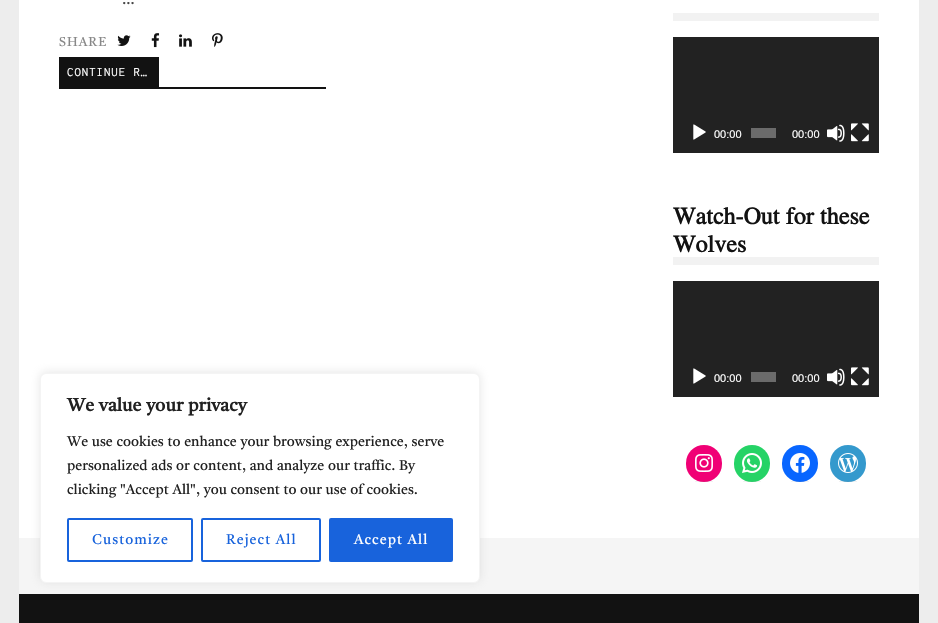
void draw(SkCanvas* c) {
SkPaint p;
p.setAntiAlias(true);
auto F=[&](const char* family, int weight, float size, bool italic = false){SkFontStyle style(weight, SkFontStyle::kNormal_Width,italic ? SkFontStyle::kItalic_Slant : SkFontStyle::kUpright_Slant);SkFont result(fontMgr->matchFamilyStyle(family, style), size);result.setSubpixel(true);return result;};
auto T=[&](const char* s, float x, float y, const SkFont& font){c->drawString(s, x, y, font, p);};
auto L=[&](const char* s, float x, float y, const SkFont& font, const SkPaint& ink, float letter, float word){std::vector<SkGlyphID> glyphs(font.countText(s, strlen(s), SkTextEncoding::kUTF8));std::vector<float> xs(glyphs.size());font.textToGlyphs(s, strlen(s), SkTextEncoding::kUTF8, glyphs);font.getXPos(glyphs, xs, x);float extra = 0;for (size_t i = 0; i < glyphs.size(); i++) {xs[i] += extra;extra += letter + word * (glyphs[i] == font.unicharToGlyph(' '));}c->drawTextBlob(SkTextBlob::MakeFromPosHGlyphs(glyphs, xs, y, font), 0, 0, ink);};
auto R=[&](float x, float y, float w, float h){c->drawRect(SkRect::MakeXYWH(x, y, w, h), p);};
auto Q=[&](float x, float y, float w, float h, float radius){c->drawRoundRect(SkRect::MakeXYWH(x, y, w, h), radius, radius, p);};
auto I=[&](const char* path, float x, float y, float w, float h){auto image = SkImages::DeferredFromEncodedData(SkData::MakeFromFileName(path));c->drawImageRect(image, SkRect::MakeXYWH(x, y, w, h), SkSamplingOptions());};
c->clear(0xffededed);
p.setColor(0xffffffff);
R(19,0,900,538);
auto f1 = F("Tiro Devanagari Marathi",400,15);
p.setColor(0xff444444);
T("…",122,4,f1);
p.setColor(0xff121212);
R(59,87,267,2);
auto f2 = F("Tiro Devanagari Marathi",400,12.75);
p.setColor(0xff888888);
L("SHARE",59,46,f2,p,1,0);
I("1.png",117,35,14,11);
I("2.png",151,33,9,15);
I("3.png",179,34,13,13);
I("4.png",212,33,11,14);
p.setColor(0xff121212);
R(59,57,100,30);
auto f3 = F("Inconsolata",400,12.75);
p.setColor(0xffffffff);
L("CONTINUE R…",67,76,f3,p,1,0);
p.setColor(0xfff2f2f2);
R(673,13,206,8);
p.setColor(0xff222222);
R(673,37,206,116);
I("5.png",693,124,13,16);
auto f4 = F("Liberation Sans",400,11);
p.setColor(0xffffffff);
T("00:00",714,138,f4);
p.setColor(0xff6b6b6b);
R(751,128,25,10);
p.setColor(0xffffffff);
T("00:00",792,138,f4);
I("6.png",827,124,18,18);
I("7.png",851,123,18,19);
p.setColor(0xfff2f2f2);
R(673,257,206,8);
auto f5 = F("Jomolhari",700,21.5);
p.setColor(0xff121212);
T("Watch-Out for these",673,224,f5);
T("Wolves",673,252,f5);
p.setColor(0xff222222);
R(673,281,206,116);
I("5.png",693,368,13,16);
p.setColor(0xffffffff);
T("00:00",714,382,f4);
p.setColor(0xff6b6b6b);
R(751,372,25,10);
p.setColor(0xffffffff);
T("00:00",792,382,f4);
I("6.png",827,368,18,18);
I("7.png",851,367,18,19);
p.setColor(0xfff00075);
Q(686,445,36,37,18);
p.setColor(0x1a808080);
R(695,481,18,1);
I("8.png",695,454,18,18);
p.setColor(0xff25d366);
Q(734,445,36,37,18);
p.setColor(0x1a808080);
R(743,481,18,1);
I("9.png",742,453,20,20);
p.setColor(0xff0866ff);
Q(782,445,36,37,18);
p.setColor(0x1a808080);
R(791,481,18,1);
I("10.png",790,453,20,20);
p.setColor(0xff3499cd);
Q(830,445,36,37,18);
p.setColor(0x1a808080);
R(839,481,18,1);
I("11.png",838,453,20,20);
p.setColor(0xfff5f5f5);
R(19,538,900,56);
p.setColor(0xff121212);
R(19,594,900,29);
p.setColor(0x4dacabab);
p.setMaskFilter(SkMaskFilter::MakeBlur(kNormal_SkBlurStyle, 5));
c->drawRoundRect(SkRect::MakeXYWH(40,372,440,210),6,6,p);
p.setMaskFilter(nullptr);
p.setColor(0xffffffff);
c->drawRoundRect(SkRect::MakeXYWH(40.5,373.5,439,209),5.5,5.5,p);
p.setStroke(true);
p.setStrokeWidth(1);
p.setColor(0xfff4f4f4);
c->drawRoundRect(SkRect::MakeXYWH(40.5,373.5,439,209),5.5,5.5,p);
auto f6 = F("Tiro Devanagari Marathi",700,18);
p.setStroke(false);
p.setColor(0xff212121);
T("We value your privacy",67,411,f6);
auto f7 = F("Tiro Devanagari Marathi",400,14);
T("We use cookies to enhance your",67,446,f7);
T("browsing experience, serve",273,446,f7);
T("personalized ads or content, and analyze",67,470,f7);
T("our traffic. By",328,470,f7);
T("clicking \"Accept All\", you consent to",67,494,f7);
T("our use of cookies.",300,494,f7);
p.setStroke(true);
p.setStrokeWidth(2);
p.setColor(0xff1863dc);
c->drawRoundRect(SkRect::MakeXYWH(68,519,124,42),1,1,p);
p.setStroke(false);
L("Customize",92,544,f7,p,1,0);
p.setStroke(true);
c->drawRoundRect(SkRect::MakeXYWH(202,519,118,42),1,1,p);
p.setStroke(false);
L("Reject All",226,544,f7,p,1,0);
c->drawRoundRect(SkRect::MakeXYWH(330,519,122,42),1,1,p);
p.setStroke(true);
c->drawRoundRect(SkRect::MakeXYWH(330,519,122,42),1,1,p);
p.setStroke(false);
p.setColor(0xffffffff);
L("Accept All",354,544,f7,p,1,0);
}
